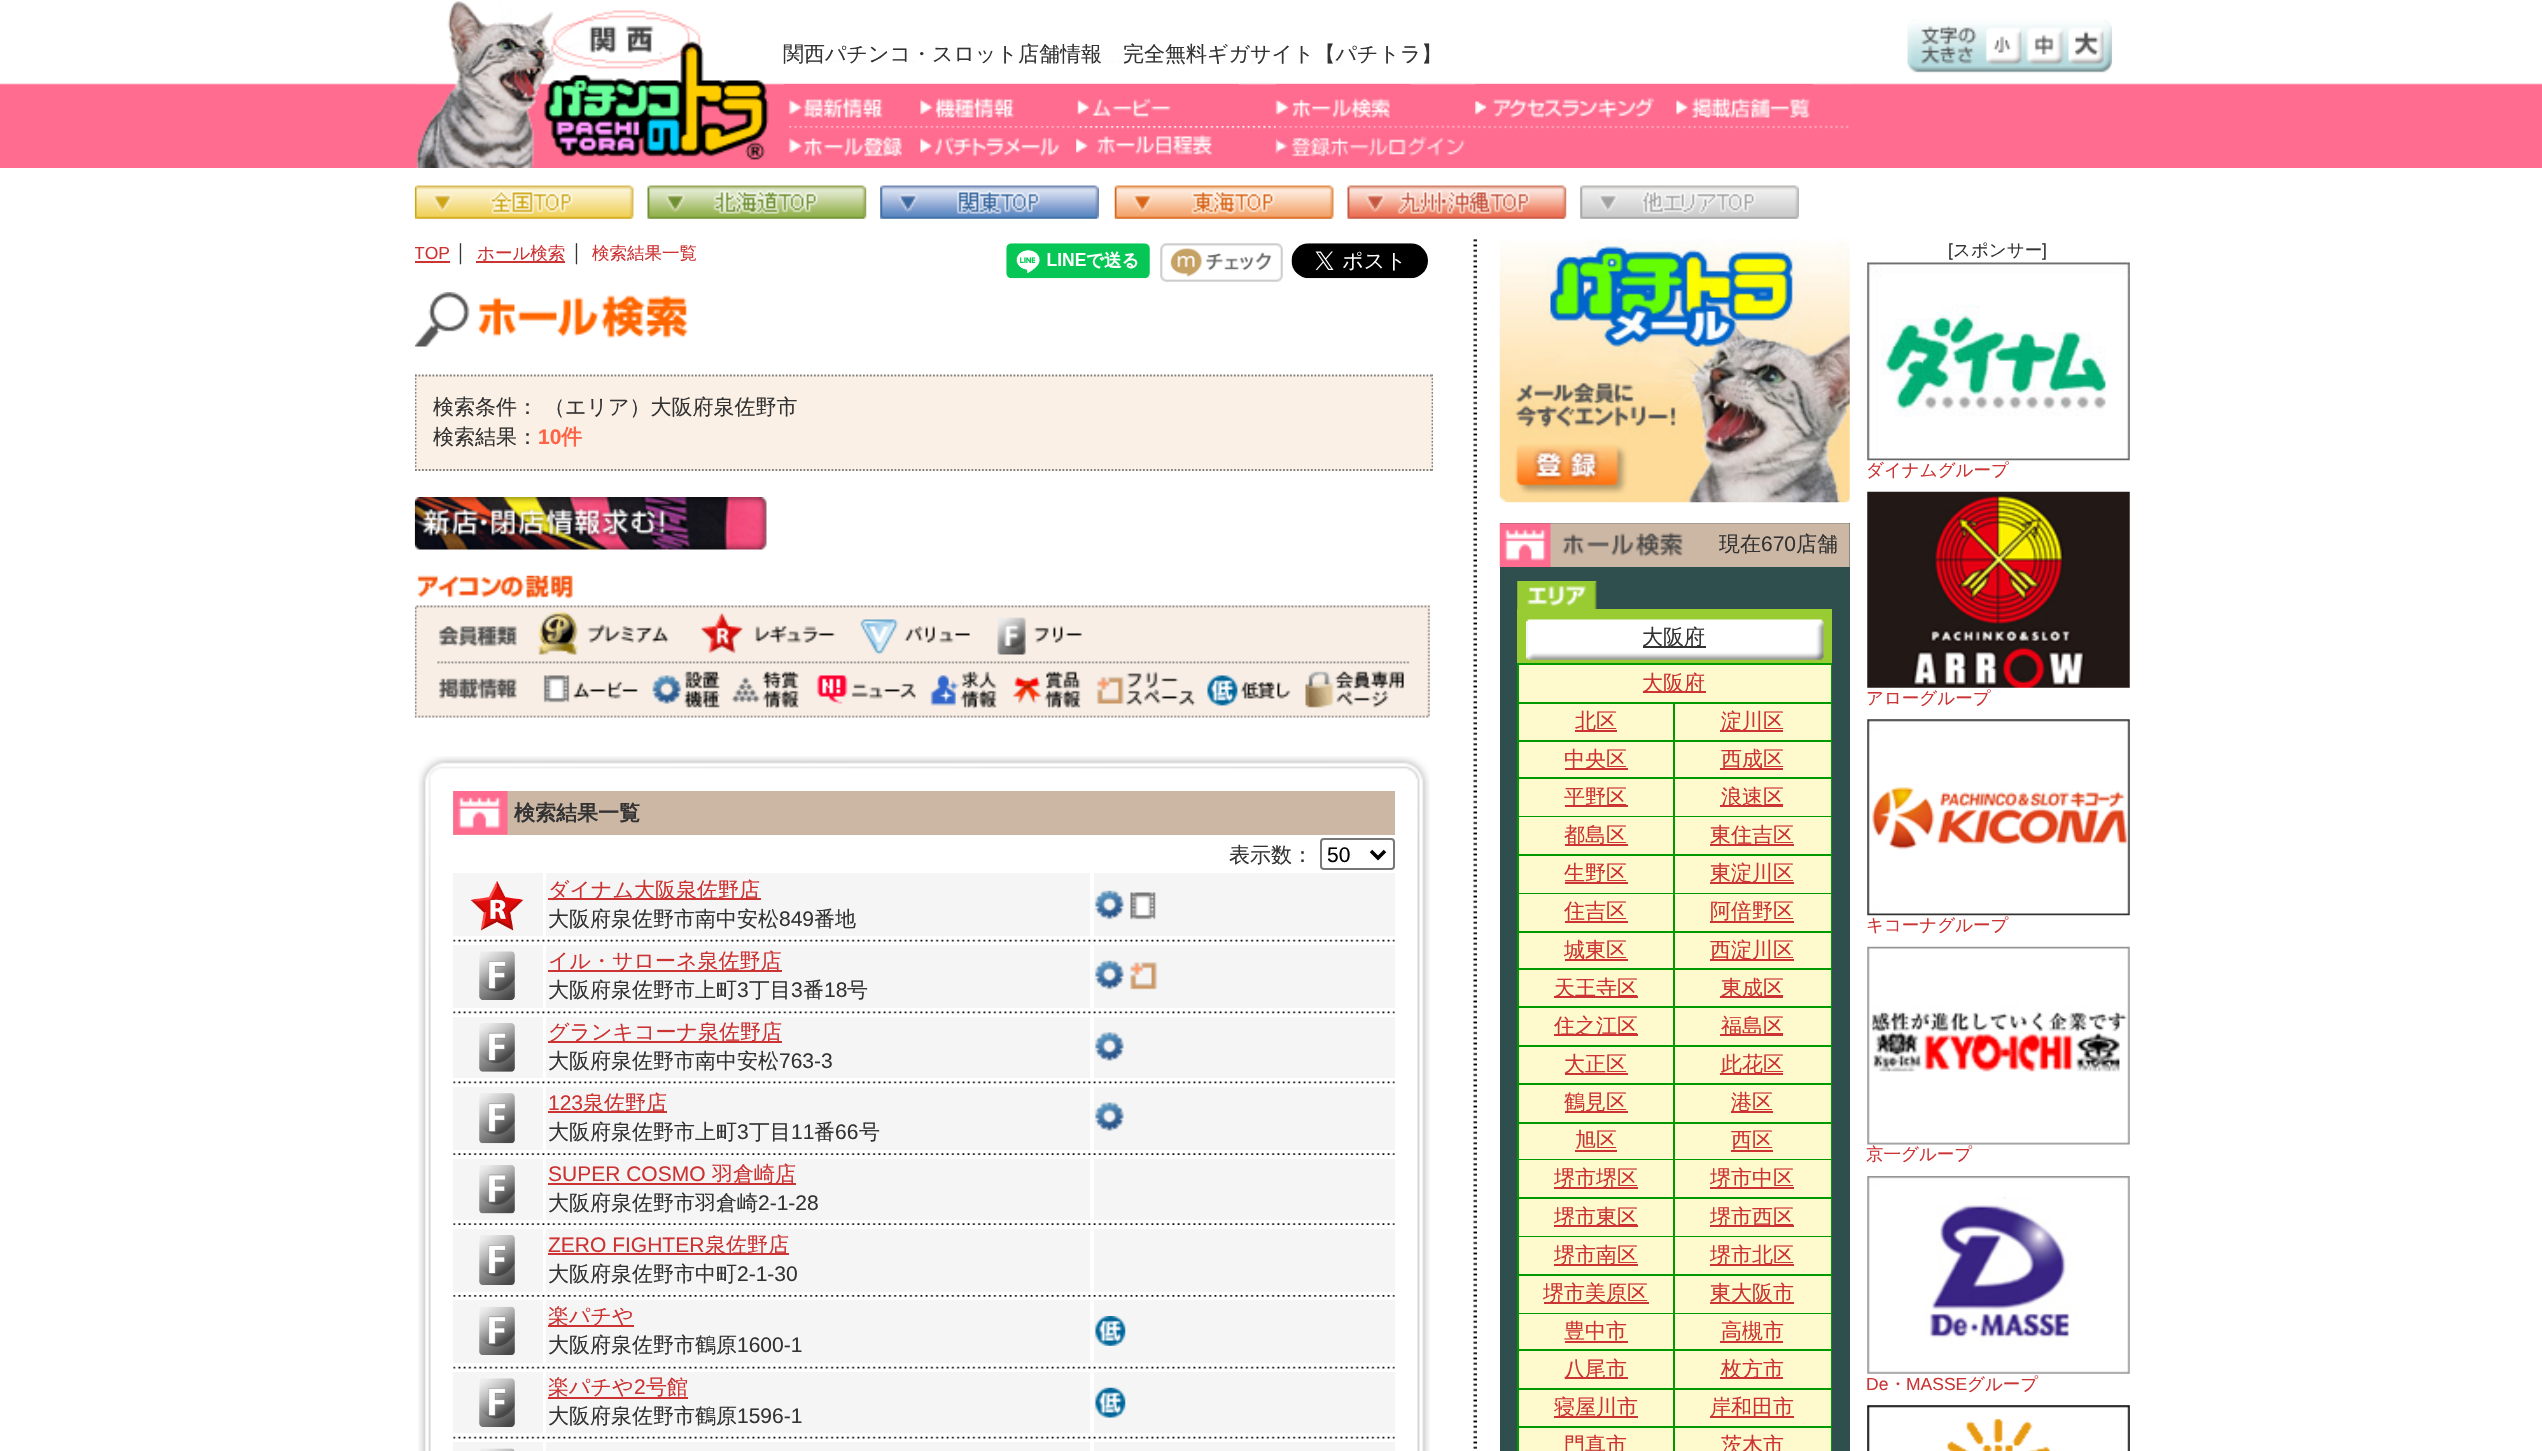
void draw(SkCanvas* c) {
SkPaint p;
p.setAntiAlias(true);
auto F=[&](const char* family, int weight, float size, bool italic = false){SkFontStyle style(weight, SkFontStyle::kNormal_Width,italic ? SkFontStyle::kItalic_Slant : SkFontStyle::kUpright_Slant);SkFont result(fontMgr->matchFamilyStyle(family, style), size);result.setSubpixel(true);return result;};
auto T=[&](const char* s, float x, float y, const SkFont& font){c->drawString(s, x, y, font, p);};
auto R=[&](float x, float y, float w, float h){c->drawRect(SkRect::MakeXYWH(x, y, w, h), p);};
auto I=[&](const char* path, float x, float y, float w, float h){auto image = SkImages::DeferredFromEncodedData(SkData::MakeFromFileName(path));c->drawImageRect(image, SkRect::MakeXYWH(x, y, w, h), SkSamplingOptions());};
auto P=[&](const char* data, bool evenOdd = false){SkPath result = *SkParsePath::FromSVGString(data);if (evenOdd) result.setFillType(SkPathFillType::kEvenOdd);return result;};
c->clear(0xffffffff);
I("1.png",0,83,2542,85);
I("2.png",415,60,1436,69);
I("3.png",416,1,353,167);
auto f1 = F("WenQuanYi Zen Hei",500,21);
p.setColor(0xff333333);
T("関西パチンコ・スロット店舗情報　完全無料ギガサイト【パチトラ】",783,61,f1);
I("4.png",1907,19,206,54);
I("5.png",784,84,135,42);
I("6.png",919,84,158,42);
I("7.png",1076,84,163,42);
I("8.png",1275,84,136,42);
I("9.png",1475,84,200,42);
I("10.png",1675,84,138,42);
I("11.png",788,126,130,31);
I("12.png",920,126,156,31);
I("13.png",1076,126,200,30);
I("14.png",1275,126,201,31);
I("15.png",414,185,220,34);
I("16.png",647,185,220,34);
I("17.png",880,185,219,34);
I("18.png",1114,185,220,34);
I("19.png",1347,185,220,34);
I("20.png",1580,185,219,34);
c->save();
c->clipRect(SkRect::MakeXYWH(415,238,1018,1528));
auto f2 = F("Liberation Sans",400,17.5);
p.setColor(0xffcc3333);
T("TOP",414,259,f2);
c->restore();
R(415,261,35,2);
p.setColor(0xff333333);
T("｜",450,259,f1);
p.setColor(0xffcc3333);
R(476,261,89,2);
auto f3 = F("WenQuanYi Zen Hei",500,17.5);
T("ホール検索",477,259,f3);
p.setColor(0xff333333);
T("｜",566,259,f1);
p.setColor(0xffcc3333);
T("検索結果一覧",592,259,f3);
I("21.png",1006,243,144,36);
I("22.png",1160,243,123,39);
I("23.png",1291,243,137,36);
I("24.png",414,292,274,55);
p.setColor(0xfffaf0e6);
R(415,375,1018,96);
p.setStroke(true);
p.setStrokeWidth(1.8);
p.setColor(0xff808080);
p.setPathEffect(SkDashPathEffect::Make({{1.75f,1.75f}}, 0));
c->drawPath(P("M415 375.5h1018"),p);
p.setPathEffect(nullptr);
c->save();
c->clipRect(SkRect::MakeXYWH(415,238,1018,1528));
p.setPathEffect(SkDashPathEffect::Make({{1.75f,1.75f}}, 0));
c->drawPath(P("M1432.5 374.5v96.5"),p);
p.setPathEffect(nullptr);
c->restore();
p.setPathEffect(SkDashPathEffect::Make({{1.75f,1.75f}}, 0));
c->drawPath(P("M415 470h1018"),p);
p.setPathEffect(nullptr);
c->save();
c->clipRect(SkRect::MakeXYWH(415,238,1018,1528));
p.setPathEffect(SkDashPathEffect::Make({{1.75f,1.75f}}, 0));
c->drawPath(P("M415.5 374.5v96.5"),p);
p.setPathEffect(nullptr);
c->restore();
p.setStroke(false);
p.setColor(0xff333333);
T("検索条件：",433,414,f1);
T("（エリア）大阪府泉佐野市",544,414,f1);
T("検索結果：",433,444,f1);
auto f4 = F("Liberation Sans",700,21);
p.setColor(0xffff6347);
T("10",538,444,f4);
auto f5 = F("WenQuanYi Zen Hei",700,21);
T("件",561,444,f5);
I("25.png",414,497,353,53);
I("26.png",414,575,1016,143);
I("27.png",418,756,1012,695);
p.setColor(0xffccb7a4);
R(453,791,942,44);
I("28.png",453,791,55,44);
p.setColor(0xff333333);
T("検索結果一覧",514,820,f5);
T("表示数：",1229,862,f1);
p.setStroke(true);
p.setStrokeWidth(2);
p.setColor(0xff767676);
c->drawRoundRect(SkRect::MakeXYWH(1321,839,73,30),3,3,p);
p.setStrokeWidth(3.5);
p.setColor(0xff000000);
c->drawPath(P("M1371 851l7 7l7-7"),p);
auto f6 = F("Liberation Sans",400,21);
p.setStroke(false);
T("50",1327,862,f6);
p.setColor(0xfff5f5f5);
R(453,873,90,63);
I("29.png",470,881,54,50);
R(546,873,544,63);
p.setColor(0xffcc3333);
R(548,898,213,2);
T("ダイナム大阪泉佐野店",548,897,f1);
p.setColor(0xff333333);
T("大阪府泉佐野市南中安松",548,926,f1);
T("849",779,926,f6);
T("番地",814,926,f1);
p.setColor(0xfff5f5f5);
R(1094,873,301,63);
I("30.png",1095,890,29,30);
I("31.png",1130,892,26,28);
I("32.png",453,939,942,3);
R(453,945,90,63);
I("33.png",479,951,36,49);
R(546,945,544,63);
p.setColor(0xffcc3333);
R(548,970,234,2);
T("イル・サローネ泉佐野店",548,968,f1);
p.setColor(0xff333333);
T("大阪府泉佐野市上町",548,997,f1);
T("3",737,997,f6);
T("丁目",749,997,f1);
T("3",791,997,f6);
T("番",803,997,f1);
T("18",824,997,f6);
T("号",847,997,f1);
p.setColor(0xfff5f5f5);
R(1094,945,301,63);
I("30.png",1095,960,29,30);
I("34.png",1130,962,28,28);
I("35.png",453,1011,942,3);
R(453,1017,90,61);
I("36.png",479,1023,36,49);
R(546,1017,544,61);
p.setColor(0xffcc3333);
R(548,1041,234,2);
T("グランキコーナ泉佐野店",548,1039,f1);
p.setColor(0xff333333);
T("大阪府泉佐野市南中安松",548,1068,f1);
T("763-3",779,1068,f6);
p.setColor(0xfff5f5f5);
R(1094,1017,301,61);
I("37.png",1095,1032,29,29);
I("35.png",453,1081,942,3);
R(453,1087,90,63);
I("38.png",479,1093,36,51);
R(546,1087,544,63);
p.setColor(0xffcc3333);
T("123",548,1110,f6);
R(548,1111,119,2);
T("泉佐野店",583,1110,f1);
p.setColor(0xff333333);
T("大阪府泉佐野市上町",548,1139,f1);
T("3",737,1139,f6);
T("丁目",749,1139,f1);
T("11",791,1139,f6);
T("番",814,1139,f1);
T("66",835,1139,f6);
T("号",859,1139,f1);
p.setColor(0xfff5f5f5);
R(1094,1087,301,63);
I("37.png",1095,1102,29,29);
I("39.png",453,1153,942,2);
R(453,1159,90,61);
I("40.png",479,1165,36,49);
R(546,1159,544,61);
p.setColor(0xffcc3333);
T("SUPER COSMO",548,1181,f6);
R(548,1183,248,2);
T("羽倉崎店",712,1181,f1);
p.setColor(0xff333333);
T("大阪府泉佐野市羽倉崎",548,1210,f1);
T("2-1-28",758,1210,f6);
p.setColor(0xfff5f5f5);
R(1094,1159,301,61);
I("39.png",453,1223,942,2);
R(453,1229,90,63);
I("41.png",479,1235,36,50);
R(546,1229,544,63);
p.setColor(0xffcc3333);
T("ZERO FIGHTER",548,1252,f6);
R(548,1253,241,2);
T("泉佐野店",705,1252,f1);
p.setColor(0xff333333);
T("大阪府泉佐野市中町",548,1281,f1);
T("2-1-30",737,1281,f6);
p.setColor(0xfff5f5f5);
R(1094,1229,301,63);
I("42.png",453,1295,942,2);
R(453,1300,90,63);
I("43.png",479,1306,36,49);
R(546,1300,544,63);
p.setColor(0xffcc3333);
R(548,1325,86,2);
T("楽パチや",548,1323,f1);
p.setColor(0xff333333);
T("大阪府泉佐野市鶴原",548,1352,f1);
T("1600-1",737,1352,f6);
p.setColor(0xfff5f5f5);
R(1094,1300,301,63);
I("44.png",1095,1316,31,30);
I("32.png",453,1366,942,3);
R(453,1372,90,61);
I("33.png",479,1378,36,49);
R(546,1372,544,61);
p.setColor(0xffcc3333);
T("楽パチや",548,1394,f1);
T("2",634,1394,f6);
T("号館",646,1394,f1);
R(548,1397,140,2);
p.setColor(0xff333333);
T("大阪府泉佐野市鶴原",548,1423,f1);
T("1596-1",737,1423,f6);
p.setColor(0xfff5f5f5);
R(1094,1372,301,61);
I("45.png",1095,1387,31,31);
I("32.png",453,1436,942,3);
R(453,1442,90,9);
I("46.png",480,1448,35,3);
R(546,1442,544,9);
R(1094,1442,301,9);
I("47.png",1473,239,4,1210);
I("48.png",1499,238,351,265);
p.setColor(0xff2f4f4f);
R(1500,523,350,928);
I("49.png",1499,523,351,44);
p.setColor(0xff333333);
T("現在",1719,551,f1);
T("670",1761,551,f6);
T("店舗",1796,551,f1);
p.setColor(0xff99cc33);
R(1517,609,315,54);
I("50.png",1517,581,80,28);
I("51.png",1526,619,298,41);
p.setColor(0xff333333);
R(1643,646,63,2);
T("大阪府",1642,644,f1);
p.setColor(0xff009900);
R(1517,663,315,788);
p.setColor(0xfffffacd);
R(1519,665,312,37);
p.setColor(0xffcc3333);
R(1643,691,63,2);
T("大阪府",1642,690,f1);
p.setColor(0xfffffacd);
R(1519,704,154,36);
p.setColor(0xffcc3333);
R(1575,730,42,2);
T("北区",1575,728,f1);
p.setColor(0xfffffacd);
R(1675,704,156,36);
p.setColor(0xffcc3333);
R(1720,730,63,2);
T("淀川区",1721,728,f1);
p.setColor(0xfffffacd);
R(1519,742,154,35);
p.setColor(0xffcc3333);
R(1565,768,63,2);
T("中央区",1564,766,f1);
p.setColor(0xfffffacd);
R(1675,742,156,35);
p.setColor(0xffcc3333);
R(1720,768,63,2);
T("西成区",1721,766,f1);
p.setColor(0xfffffacd);
R(1519,779,154,37);
p.setColor(0xffcc3333);
R(1565,805,63,2);
T("平野区",1564,804,f1);
p.setColor(0xfffffacd);
R(1675,779,156,37);
p.setColor(0xffcc3333);
R(1720,805,63,2);
T("浪速区",1721,804,f1);
p.setColor(0xfffffacd);
R(1519,817,154,37);
p.setColor(0xffcc3333);
R(1565,844,63,2);
T("都島区",1564,842,f1);
p.setColor(0xfffffacd);
R(1675,817,156,37);
p.setColor(0xffcc3333);
R(1710,844,84,2);
T("東住吉区",1710,842,f1);
p.setColor(0xfffffacd);
R(1519,856,154,37);
p.setColor(0xffcc3333);
R(1565,882,63,2);
T("生野区",1564,880,f1);
p.setColor(0xfffffacd);
R(1675,856,156,37);
p.setColor(0xffcc3333);
R(1710,882,84,2);
T("東淀川区",1710,880,f1);
p.setColor(0xfffffacd);
R(1519,894,154,37);
p.setColor(0xffcc3333);
T("住吉区",1564,918,f1);
R(1565,921,63,2);
p.setColor(0xfffffacd);
R(1675,894,156,37);
p.setColor(0xffcc3333);
T("阿倍野区",1710,918,f1);
R(1710,921,84,2);
p.setColor(0xfffffacd);
R(1519,933,154,35);
p.setColor(0xffcc3333);
R(1565,959,63,2);
T("城東区",1564,957,f1);
p.setColor(0xfffffacd);
R(1675,933,156,35);
p.setColor(0xffcc3333);
R(1710,959,84,2);
T("西淀川区",1710,957,f1);
p.setColor(0xfffffacd);
R(1519,970,154,36);
p.setColor(0xffcc3333);
R(1554,996,84,2);
T("天王寺区",1554,995,f1);
p.setColor(0xfffffacd);
R(1675,970,156,36);
p.setColor(0xffcc3333);
R(1720,996,63,2);
T("東成区",1721,995,f1);
p.setColor(0xfffffacd);
R(1519,1008,154,37);
p.setColor(0xffcc3333);
R(1554,1034,84,2);
T("住之江区",1554,1033,f1);
p.setColor(0xfffffacd);
R(1675,1008,156,37);
p.setColor(0xffcc3333);
R(1720,1034,63,2);
T("福島区",1721,1033,f1);
p.setColor(0xfffffacd);
R(1519,1047,154,36);
p.setColor(0xffcc3333);
R(1565,1073,63,2);
T("大正区",1564,1071,f1);
p.setColor(0xfffffacd);
R(1675,1047,156,36);
p.setColor(0xffcc3333);
R(1720,1073,63,2);
T("此花区",1721,1071,f1);
p.setColor(0xfffffacd);
R(1519,1085,154,37);
p.setColor(0xffcc3333);
R(1565,1111,63,2);
T("鶴見区",1564,1109,f1);
p.setColor(0xfffffacd);
R(1675,1085,156,37);
p.setColor(0xffcc3333);
R(1731,1111,42,2);
T("港区",1731,1109,f1);
p.setColor(0xfffffacd);
R(1519,1124,154,35);
p.setColor(0xffcc3333);
T("旭区",1575,1147,f1);
R(1575,1150,42,2);
p.setColor(0xfffffacd);
R(1675,1124,156,35);
p.setColor(0xffcc3333);
T("西区",1731,1147,f1);
R(1731,1150,42,2);
p.setColor(0xfffffacd);
R(1519,1160,154,37);
p.setColor(0xffcc3333);
R(1554,1187,84,2);
T("堺市堺区",1554,1185,f1);
p.setColor(0xfffffacd);
R(1675,1160,156,37);
p.setColor(0xffcc3333);
R(1710,1187,84,2);
T("堺市中区",1710,1185,f1);
p.setColor(0xfffffacd);
R(1519,1199,154,37);
p.setColor(0xffcc3333);
R(1554,1225,84,2);
T("堺市東区",1554,1224,f1);
p.setColor(0xfffffacd);
R(1675,1199,156,37);
p.setColor(0xffcc3333);
R(1710,1225,84,2);
T("堺市西区",1710,1224,f1);
p.setColor(0xfffffacd);
R(1519,1237,154,37);
p.setColor(0xffcc3333);
R(1554,1264,84,2);
T("堺市南区",1554,1262,f1);
p.setColor(0xfffffacd);
R(1675,1237,156,37);
p.setColor(0xffcc3333);
R(1710,1264,84,2);
T("堺市北区",1710,1262,f1);
p.setColor(0xfffffacd);
R(1519,1276,154,37);
p.setColor(0xffcc3333);
R(1544,1302,105,2);
T("堺市美原区",1543,1300,f1);
p.setColor(0xfffffacd);
R(1675,1276,156,37);
p.setColor(0xffcc3333);
R(1710,1302,84,2);
T("東大阪市",1710,1300,f1);
p.setColor(0xfffffacd);
R(1519,1314,154,35);
p.setColor(0xffcc3333);
T("豊中市",1564,1338,f1);
R(1565,1341,63,2);
p.setColor(0xfffffacd);
R(1675,1314,156,35);
p.setColor(0xffcc3333);
R(1720,1341,63,2);
T("高槻市",1721,1338,f1);
p.setColor(0xfffffacd);
R(1519,1351,154,37);
p.setColor(0xffcc3333);
R(1565,1377,63,2);
T("八尾市",1564,1376,f1);
p.setColor(0xfffffacd);
R(1675,1351,156,37);
p.setColor(0xffcc3333);
R(1720,1377,63,2);
T("枚方市",1721,1376,f1);
p.setColor(0xfffffacd);
R(1519,1390,154,36);
p.setColor(0xffcc3333);
R(1554,1416,84,2);
T("寝屋川市",1554,1414,f1);
p.setColor(0xfffffacd);
R(1675,1390,156,36);
p.setColor(0xffcc3333);
R(1710,1416,84,2);
T("岸和田市",1710,1414,f1);
p.setColor(0xfffffacd);
R(1519,1428,154,23);
p.setColor(0xffcc3333);
T("門真市",1564,1452,f1);
p.setColor(0xfffffacd);
R(1675,1428,156,23);
p.setColor(0xffcc3333);
T("茨木市",1721,1452,f1);
p.setColor(0xff333333);
T("[",1948,256,f2);
T("スポンサー",1953,256,f3);
T("]",2042,256,f2);
I("52.png",1867,262,263,199);
p.setColor(0xffcc3333);
T("ダイナムグループ",1866,476,f3);
I("53.png",1867,491,263,197);
T("アローグループ",1866,704,f3);
I("54.png",1867,719,263,197);
T("キコーナグループ",1866,931,f3);
I("55.png",1867,946,263,199);
T("京一グループ",1866,1160,f3);
I("56.png",1867,1176,263,198);
T("De",1866,1390,f2);
T("・",1889,1390,f3);
T("MASSE",1906,1390,f2);
T("グループ",1967,1390,f3);
I("57.png",1867,1405,263,46);
}
